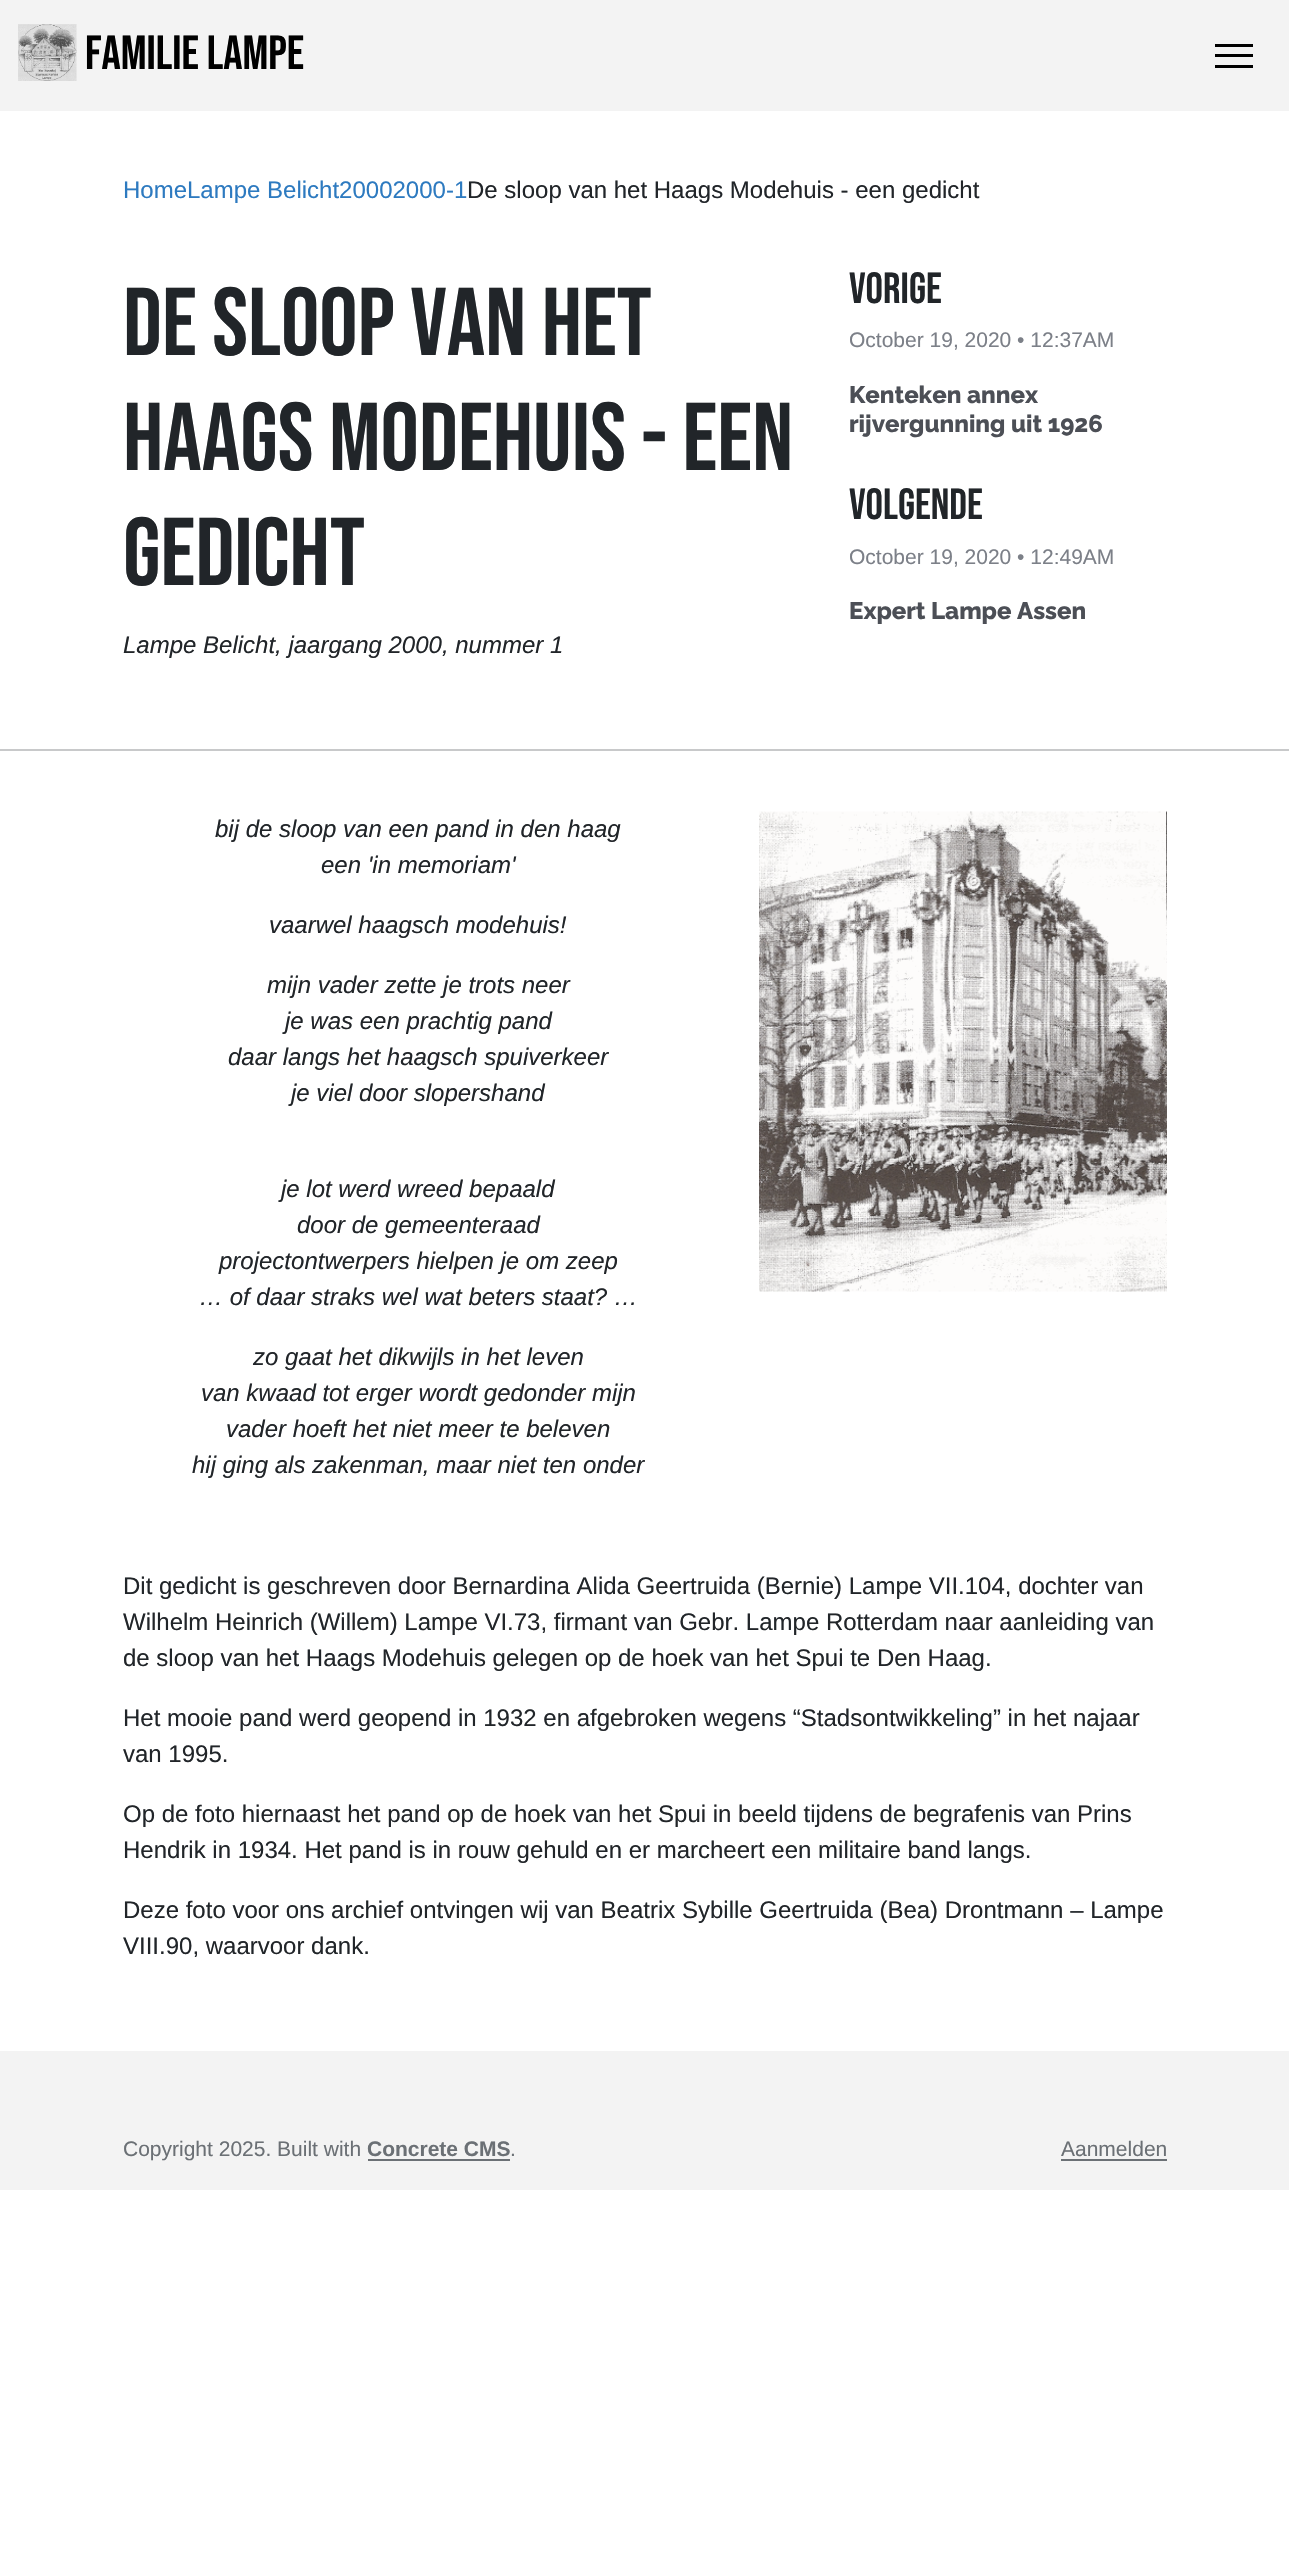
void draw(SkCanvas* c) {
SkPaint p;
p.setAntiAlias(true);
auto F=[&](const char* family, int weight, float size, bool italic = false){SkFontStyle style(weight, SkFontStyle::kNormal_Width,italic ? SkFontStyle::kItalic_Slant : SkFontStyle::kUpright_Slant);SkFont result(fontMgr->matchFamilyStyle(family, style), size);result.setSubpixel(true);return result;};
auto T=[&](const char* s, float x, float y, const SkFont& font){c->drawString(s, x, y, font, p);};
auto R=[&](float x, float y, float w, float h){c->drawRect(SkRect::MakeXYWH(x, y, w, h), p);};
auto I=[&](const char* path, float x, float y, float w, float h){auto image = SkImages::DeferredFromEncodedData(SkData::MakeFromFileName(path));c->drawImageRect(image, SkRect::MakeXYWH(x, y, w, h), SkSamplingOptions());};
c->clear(0xffffffff);
p.setColor(0xfff3f3f3);
R(0,0,1289,111);
I("1.png",18,24,59,57);
auto f1 = F("Bebas Neue",400,48);
p.setColor(0xff000000);
T("FAMILIE LAMPE",85,69,f1);
R(1215,44,38,3);
R(1215,54,38,3);
R(1215,65,38,3);
auto f2 = F("Liberation Sans",400,24);
p.setColor(0xff2d7ac0);
T("HomeLampe Belicht20002000-1",123,198,f2);
p.setColor(0xff212529);
T("De sloop van het Haags Modehuis - een gedicht",467,198,f2);
auto f3 = F("Bebas Neue",400,96);
T("DE SLOOP VAN HET",123,355,f3);
T("HAAGS MODEHUIS - EEN",123,470,f3);
T("GEDICHT",123,585,f3);
auto f4 = F("Liberation Sans",400,24,true);
T("Lampe Belicht, jaargang 2000, nummer 1",123,653,f4);
auto f5 = F("Bebas Neue",400,43.5);
T("Vorige",849,303,f5);
auto f6 = F("Liberation Sans",400,21);
p.setColor(0xff7c8088);
T("October 19, 2020 • 12:37AM",849,347,f6);
auto f7 = F("Raleway",100,24);
p.setColor(0xff4c4f56);
T("Kenteken annex",849,403,f7);
T("rijvergunning uit 1926",849,432,f7);
p.setColor(0xff212529);
T("Volgende",849,519,f5);
p.setColor(0xff7c8088);
T("October 19, 2020 • 12:49AM",849,564,f6);
p.setColor(0xff4c4f56);
T("Expert Lampe Assen",849,619,f7);
p.setColor(0xffc8c9ca);
R(0,749,1289,2);
p.setColor(0xff212529);
T("bij de sloop van een pand in den haag",215,837,f4);
T("een 'in memoriam'",321,873,f4);
T("vaarwel haagsch modehuis!",269,933,f4);
T("mijn vader zette je trots neer",267,993,f4);
T("je was een prachtig pand",285,1029,f4);
T("daar langs het haagsch spuiverkeer",228,1065,f4);
T("je viel door slopershand",291,1101,f4);
T("je lot werd wreed bepaald",281,1197,f4);
T("door de gemeenteraad",297,1233,f4);
T("projectontwerpers hielpen je om zeep",219,1269,f4);
T("… of daar straks wel wat beters staat? …",199,1305,f4);
T("zo gaat het dikwijls in het leven",253,1365,f4);
T("van kwaad tot erger wordt gedonder mijn",201,1401,f4);
T("vader hoeft het niet meer te beleven",226,1437,f4);
T("hij ging als zakenman, maar niet ten onder",192,1473,f4);
I("2.png",759,811,408,481);
T("Dit gedicht is geschreven door Bernardina Alida Geertruida (Bernie) Lampe VII.104, dochter van",123,1594,f2);
T("Wilhelm Heinrich (Willem) Lampe VI.73, firmant van Gebr. Lampe Rotterdam naar aanleiding van",123,1630,f2);
T("de sloop van het Haags Modehuis gelegen op de hoek van het Spui te Den Haag.",123,1666,f2);
T("Het mooie pand werd geopend in 1932 en afgebroken wegens “Stadsontwikkeling” in het najaar",123,1726,f2);
T("van 1995.",123,1762,f2);
T("Op de foto hiernaast het pand op de hoek van het Spui in beeld tijdens de begrafenis van Prins",123,1822,f2);
T("Hendrik in 1934. Het pand is in rouw gehuld en er marcheert een militaire band langs.",123,1858,f2);
T("Deze foto voor ons archief ontvingen wij van Beatrix Sybille Geertruida (Bea) Drontmann – Lampe",123,1918,f2);
T("VIII.90, waarvoor dank.",123,1954,f2);
p.setColor(0xfff3f3f3);
R(0,2051,1289,139);
p.setColor(0xff6b7075);
T("Copyright 2025. Built with",123,2156,f6);
auto f8 = F("Liberation Sans",700,21);
T("Concrete CMS",367,2156,f8);
R(368,2159,142,2);
T(".",510,2156,f6);
T("Aanmelden",1061,2156,f6);
R(1061,2159,106,2);
}
